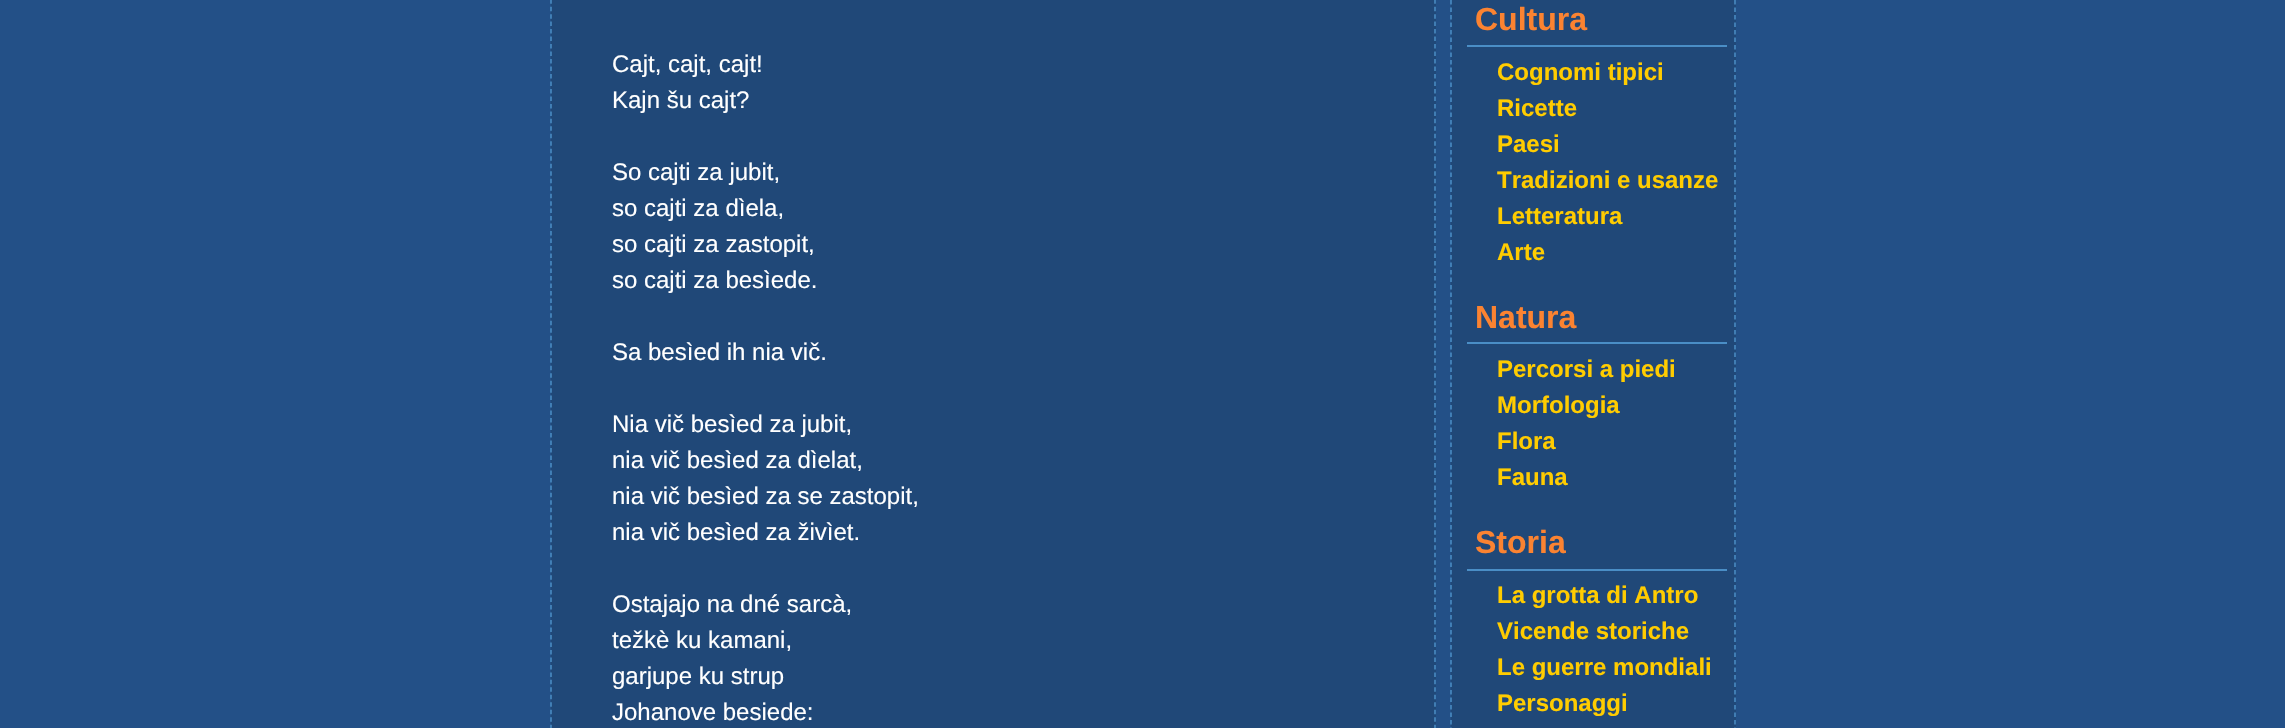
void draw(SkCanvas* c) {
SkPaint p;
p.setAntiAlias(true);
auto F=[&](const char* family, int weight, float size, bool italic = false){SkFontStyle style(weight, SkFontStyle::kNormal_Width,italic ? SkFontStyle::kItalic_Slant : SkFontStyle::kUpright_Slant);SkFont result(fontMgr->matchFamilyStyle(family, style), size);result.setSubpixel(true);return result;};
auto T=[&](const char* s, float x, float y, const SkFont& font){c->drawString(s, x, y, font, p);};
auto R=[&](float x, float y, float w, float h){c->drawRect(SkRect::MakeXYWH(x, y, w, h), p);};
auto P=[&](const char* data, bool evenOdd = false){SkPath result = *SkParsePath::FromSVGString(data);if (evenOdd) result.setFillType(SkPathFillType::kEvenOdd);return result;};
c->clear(0xff235087);
p.setColor(0xff204878);
R(551,0,885,728);
p.setStroke(true);
p.setStrokeWidth(1.5);
p.setColor(0xff4a8ec6);
p.setPathEffect(SkDashPathEffect::Make({{4.5f,2.98f}}, 0));
c->drawPath(P("M1435-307.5v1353"),p);
p.setPathEffect(nullptr);
p.setPathEffect(SkDashPathEffect::Make({{4.5f,2.98f}}, 0));
c->drawPath(P("M551-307.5v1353"),p);
p.setPathEffect(nullptr);
auto f1 = F("Liberation Sans",400,24);
p.setStroke(false);
p.setColor(0xffffffff);
T("Cajt, cajt, cajt!",612,72,f1);
T("Kajn šu cajt?",612,108,f1);
T("So cajti za jubit,",612,180,f1);
T("so cajti za dìela,",612,216,f1);
T("so cajti za zastopit,",612,252,f1);
T("so cajti za besìede.",612,288,f1);
T("Sa besìed ih nia vič.",612,360,f1);
T("Nia vič besìed za jubit,",612,432,f1);
T("nia vič besìed za dìelat,",612,468,f1);
T("nia vič besìed za se zastopit,",612,504,f1);
T("nia vič besìed za živìet.",612,540,f1);
T("Ostajajo na dné sarcà,",612,612,f1);
T("težkè ku kamani,",612,648,f1);
T("garjupe ku strup",612,684,f1);
T("Johanove besiede:",612,720,f1);
p.setColor(0xff204878);
R(1451,0,285,728);
p.setStroke(true);
p.setColor(0xff4a8ec6);
p.setPathEffect(SkDashPathEffect::Make({{4.5f,3}}, 0));
c->drawPath(P("M1735-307.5v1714.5"),p);
p.setPathEffect(nullptr);
p.setPathEffect(SkDashPathEffect::Make({{4.5f,3}}, 0));
c->drawPath(P("M1451-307.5v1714.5"),p);
p.setPathEffect(nullptr);
p.setStroke(false);
R(1467,45,260,2);
auto f2 = F("Liberation Sans",700,32);
p.setColor(0xfffb8331);
T("Cultura",1475,30,f2);
auto f3 = F("Liberation Sans",700,24);
p.setColor(0xffffcc00);
T("Cognomi tipici",1497,80,f3);
T("Ricette",1497,116,f3);
T("Paesi",1497,152,f3);
T("Tradizioni e usanze",1497,188,f3);
T("Letteratura",1497,224,f3);
T("Arte",1497,260,f3);
p.setColor(0xff4a8ec6);
R(1467,342,260,2);
p.setColor(0xfffb8331);
T("Natura",1475,328,f2);
p.setColor(0xffffcc00);
T("Percorsi a piedi",1497,377,f3);
T("Morfologia",1497,413,f3);
T("Flora",1497,449,f3);
T("Fauna",1497,485,f3);
p.setColor(0xff4a8ec6);
R(1467,569,260,2);
p.setColor(0xfffb8331);
T("Storia",1475,553,f2);
p.setColor(0xffffcc00);
T("La grotta di Antro",1497,603,f3);
T("Vicende storiche",1497,639,f3);
T("Le guerre mondiali",1497,675,f3);
T("Personaggi",1497,711,f3);
}
